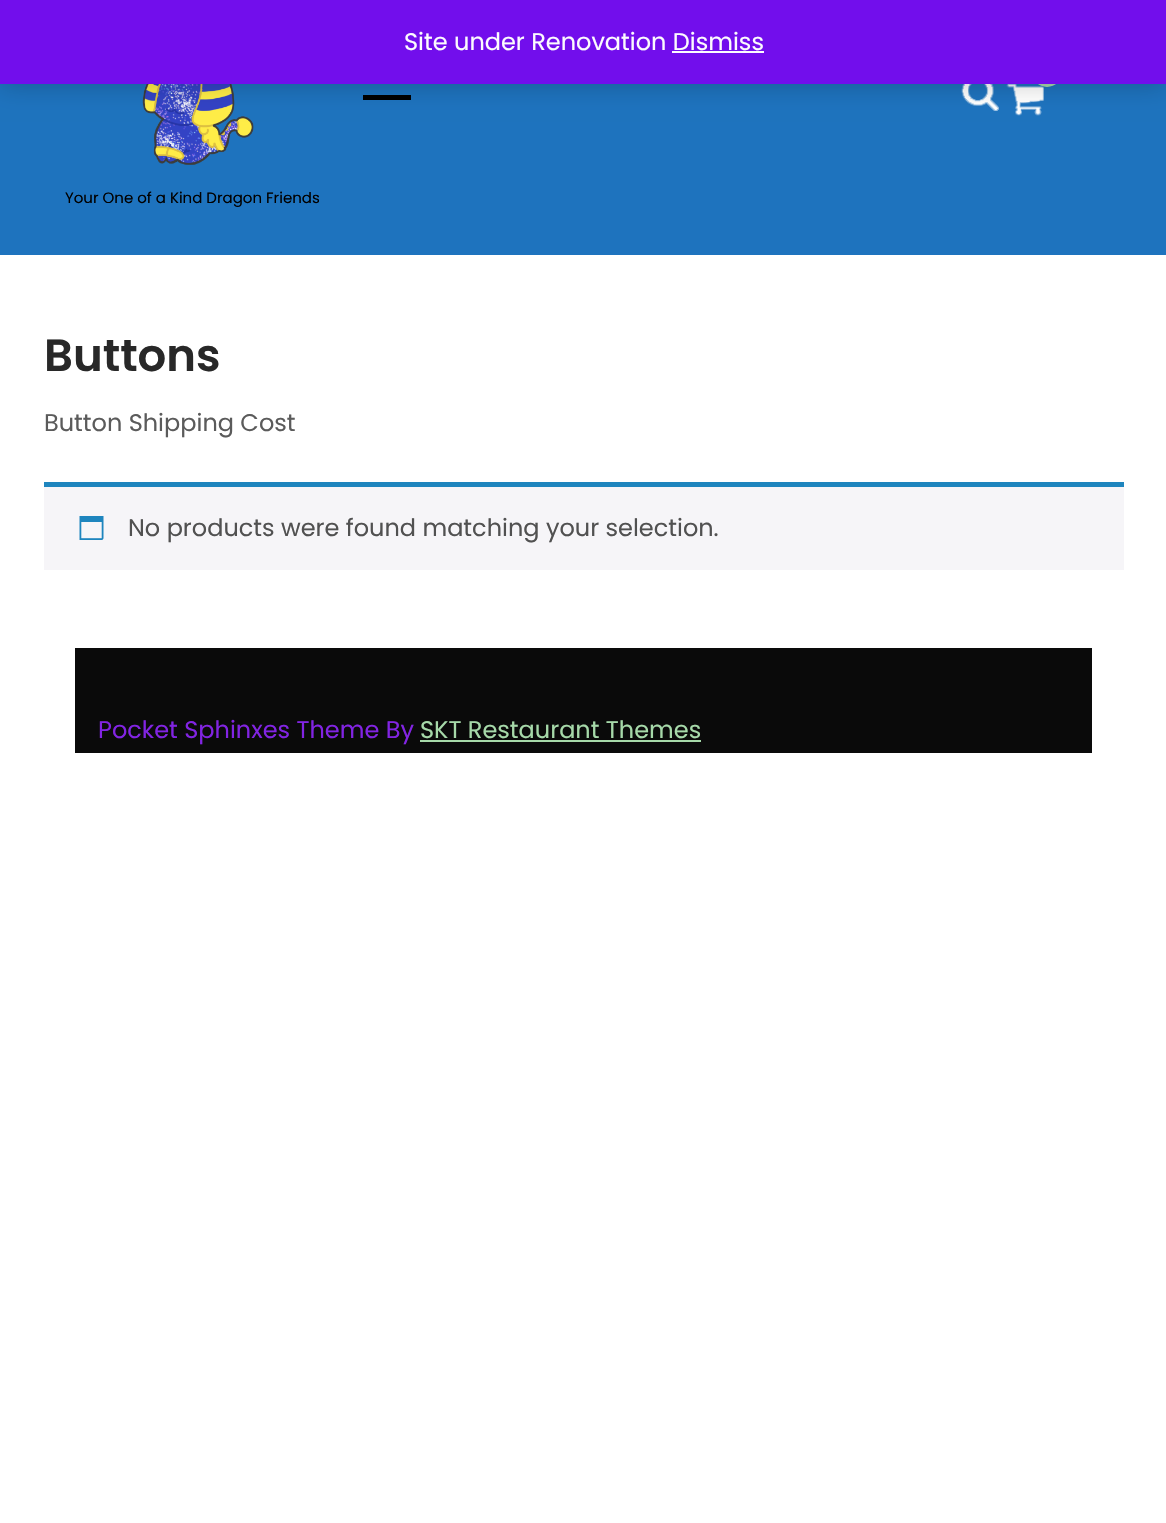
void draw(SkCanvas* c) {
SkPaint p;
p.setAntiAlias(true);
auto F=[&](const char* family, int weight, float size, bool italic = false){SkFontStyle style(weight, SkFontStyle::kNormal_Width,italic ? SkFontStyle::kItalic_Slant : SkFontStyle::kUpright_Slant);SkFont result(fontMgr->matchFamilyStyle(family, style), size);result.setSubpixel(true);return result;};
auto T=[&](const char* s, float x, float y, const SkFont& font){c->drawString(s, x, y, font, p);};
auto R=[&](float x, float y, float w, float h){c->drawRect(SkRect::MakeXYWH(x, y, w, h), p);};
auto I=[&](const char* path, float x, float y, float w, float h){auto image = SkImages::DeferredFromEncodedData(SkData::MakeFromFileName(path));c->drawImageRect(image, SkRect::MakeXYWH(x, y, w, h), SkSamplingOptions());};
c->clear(0xffffffff);
p.setColor(0xff1e73be);
R(0,84,1166,171);
p.setColor(0xff000000);
R(363,95,48,5);
I("1.png",961,84,38,27);
I("2.png",1006,84,38,32);
p.setColor(0xffa6d9a9);
c->drawCircle(1047,72,15,p);
I("3.png",142,84,112,81);
p.setColor(0x33000000);
p.setMaskFilter(SkMaskFilter::MakeBlur(kNormal_SkBlurStyle, 12));
c->drawRect(SkRect::MakeXYWH(0,2,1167,84),p);
p.setMaskFilter(nullptr);
p.setColor(0xff720eec);
R(0,0,1166,84);
auto f1 = F("Poppins",400,24);
p.setColor(0xfffcfbfe);
T("Site under Renovation Dismiss",404,50,f1);
R(672,51,92,2);
auto f2 = F("Poppins",400,15);
p.setColor(0xff000000);
T("Your One of a Kind Dragon Friends",65,203,f2);
auto f3 = F("Poppins",600,45);
p.setColor(0xff282828);
T("Buttons",44,371,f3);
p.setColor(0xff5b5b5b);
T("Button Shipping Cost",44,431,f1);
p.setColor(0xfff6f5f8);
R(44,487,1080,83);
p.setColor(0xff1e85be);
R(44,482,1080,5);
I("4.png",79,516,25,24);
p.setColor(0xff515151);
T("No products were found matching your selection.",128,536,f1);
p.setColor(0xff0a0a0a);
R(75,648,1017,105);
p.setColor(0xff8224e3);
T("Pocket Sphinxes Theme By",98,738,f1);
p.setColor(0xffa6d9a9);
T("SKT Restaurant Themes",420,738,f1);
R(420,740,281,2);
}
